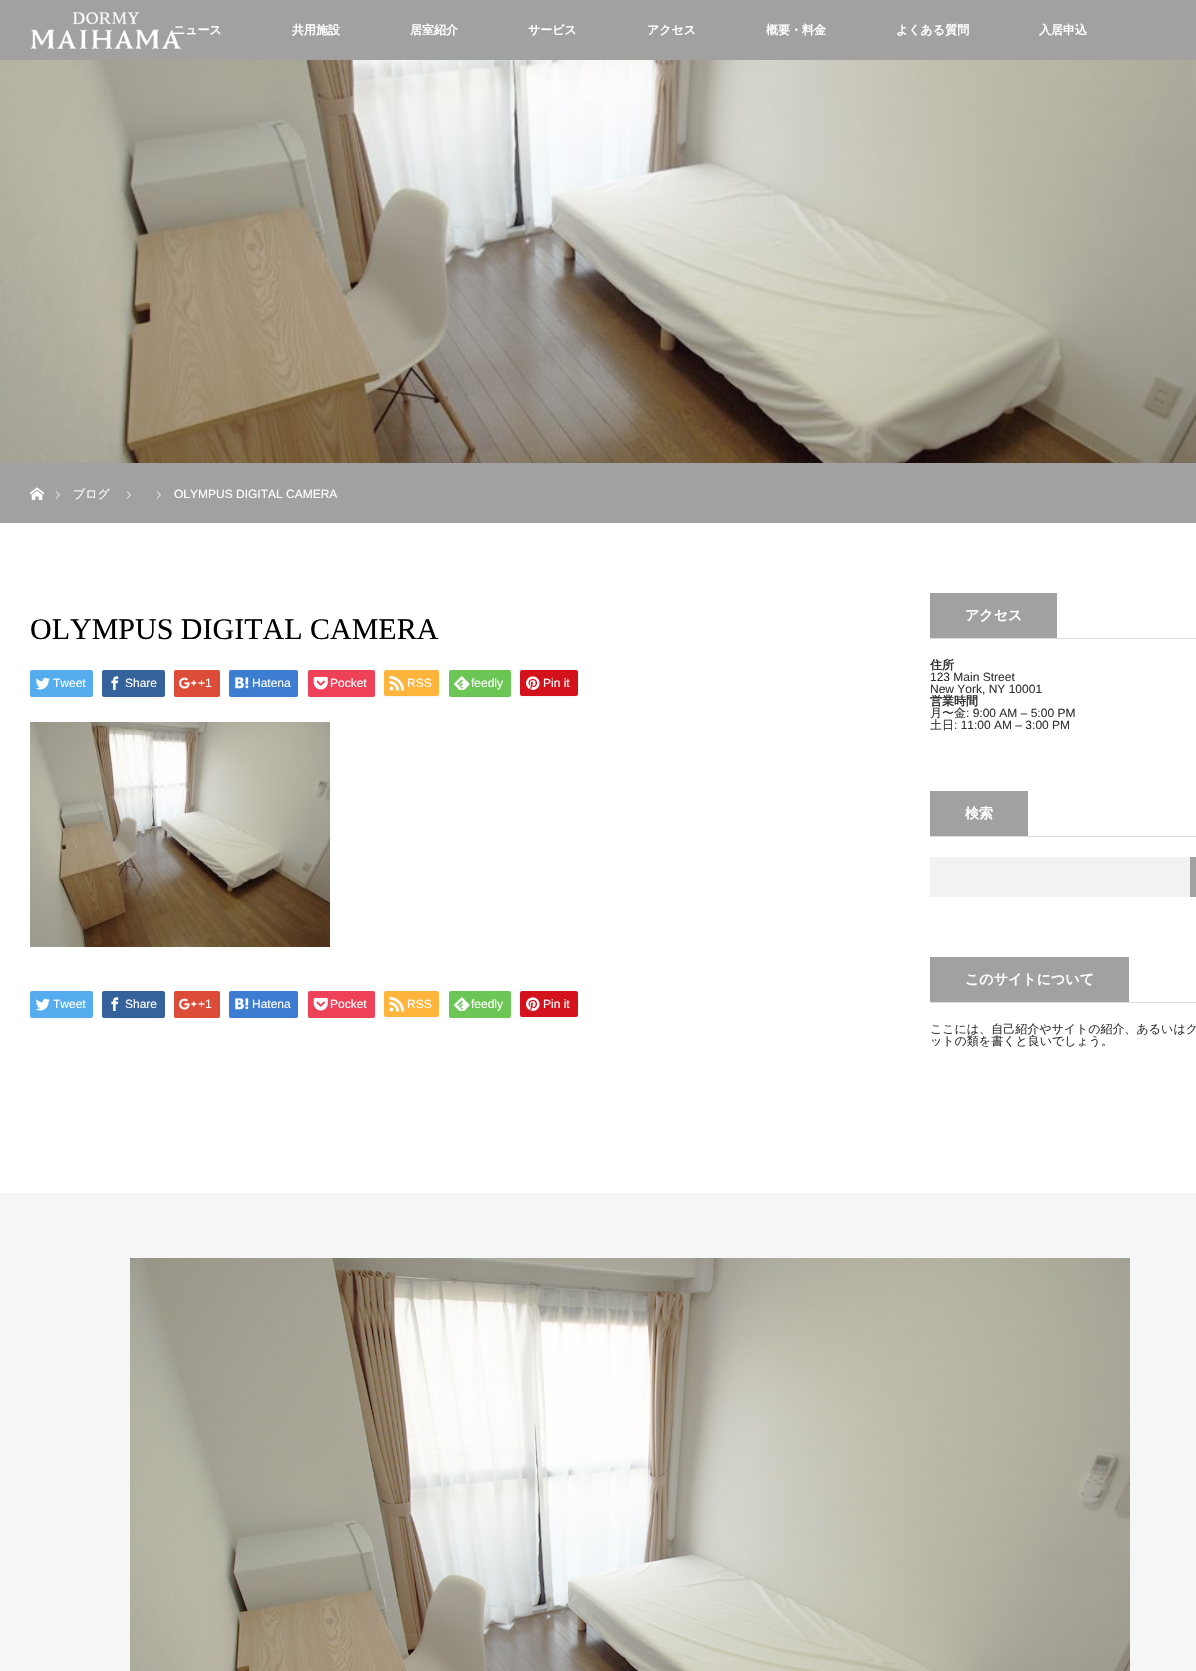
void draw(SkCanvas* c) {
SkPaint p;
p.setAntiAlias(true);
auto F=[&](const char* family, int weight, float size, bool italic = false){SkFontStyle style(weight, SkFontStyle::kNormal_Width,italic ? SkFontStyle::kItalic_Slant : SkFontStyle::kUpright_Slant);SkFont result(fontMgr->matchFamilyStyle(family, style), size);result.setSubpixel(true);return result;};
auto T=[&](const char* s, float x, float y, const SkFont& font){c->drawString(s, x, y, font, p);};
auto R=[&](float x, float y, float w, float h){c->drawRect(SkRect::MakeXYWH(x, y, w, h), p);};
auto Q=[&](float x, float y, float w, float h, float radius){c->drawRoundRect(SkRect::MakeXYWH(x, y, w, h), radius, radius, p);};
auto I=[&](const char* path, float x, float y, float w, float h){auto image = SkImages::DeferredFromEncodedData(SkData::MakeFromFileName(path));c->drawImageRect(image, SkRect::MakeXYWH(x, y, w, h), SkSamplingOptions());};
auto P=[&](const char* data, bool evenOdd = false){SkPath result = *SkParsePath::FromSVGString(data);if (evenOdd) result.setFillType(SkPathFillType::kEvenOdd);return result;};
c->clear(0xffffffff);
p.setColor(0xffa1a1a1);
R(0,0,1196,60);
auto f1 = F("WenQuanYi Zen Hei",700,12);
p.setColor(0xffffffff);
T("ニュース",173,34,f1);
I("1.png",30,12,151,37);
T("共用施設",292,34,f1);
T("居室紹介",410,34,f1);
T("サービス",528,34,f1);
T("アクセス",647,34,f1);
T("概要・料金",766,34,f1);
T("よくある質問",896,34,f1);
T("入居申込",1039,34,f1);
I("2.png",0,60,1196,403);
p.setColor(0xffa1a1a1);
R(0,463,1196,60);
I("3.png",30,487,14,13);
I("4.png",55,491,5,8);
auto f2 = F("WenQuanYi Zen Hei",500,12);
p.setColor(0xffffffff);
T("ブログ",73,498,f2);
I("4.png",126,491,5,8);
I("4.png",156,491,5,8);
auto f3 = F("Liberation Sans",400,12);
T("OLYMPUS DIGITAL CAMERA",174,498,f3);
auto f4 = F("Liberation Serif",400,30);
p.setColor(0xff000000);
T("OLYMPUS DIGITAL CAMERA",30,639,f4);
p.setColor(0xfff7f7f7);
c->drawPath(P("M30 695c0 6 8 3 12 3h39c4 0 12 3 12-3c0 4-8 2-12 2h-50z"),p);
p.setColor(0xff55acee);
Q(30,670,63,27,2);
I("5.png",35,677,15,13);
p.setColor(0xffffffff);
T("Tweet",53,687,f3);
p.setColor(0xfff7f7f7);
c->drawPath(P("M102 695c0 6 8 3 12 3h39c4 0 12 3 12-3l-1 2h-50c-4 0-12 2-12-2z"),p);
p.setColor(0xff35629a);
Q(102,670,63,27,2);
I("6.png",111,676,8,14);
p.setColor(0xffffffff);
T("Share",125,687,f3);
p.setColor(0xfff7f7f7);
c->drawPath(P("M174 695c0 5 5 3 9 3h28c4 0 9 2 9-3c0 1-1 2-2 2h-42c-1 0-2-1-2-2z"),p);
p.setColor(0xffdd4b39);
Q(174,670,46,27,2);
I("7.png",179,677,18,12);
p.setColor(0xffffffff);
T("+1",198,687,f3);
p.setColor(0xfff7f7f7);
c->drawPath(P("M229 695c0 6 9 3 13 3h43c4 0 13 3 13-3c0 1-1 2-2 2h-66z"),p);
p.setColor(0xff3c7dd1);
Q(229,670,69,27,2);
I("8.png",235,677,14,12);
p.setColor(0xffffffff);
T("Hatena",252,687,f3);
p.setColor(0xfff7f7f7);
c->drawPath(P("M308 695c0 6 9 3 12 3h42c4 0 13 3 13-3l-1 2h-64l-2-1z"),p);
p.setColor(0xffee4056);
Q(308,670,67,27,2);
I("9.png",313,676,15,14);
p.setColor(0xffffffff);
T("Pocket",330,687,f3);
p.setColor(0xfff7f7f7);
c->drawPath(P("M384 694c0 5 7 3 10 3h34c4 0 11 2 11-3l-1 2h-53z"),p);
p.setColor(0xffffb53c);
Q(384,670,55,26,2);
I("10.png",389,675,16,16);
p.setColor(0xffffffff);
T("RSS",407,687,f3);
p.setColor(0xfff7f7f7);
c->drawPath(P("M449 695c0 6 8 3 12 3h38c4 0 12 3 12-3l-1 2h-49c-4 0-12 2-12-2z"),p);
p.setColor(0xff6cc655);
Q(449,670,62,27,2);
I("11.png",454,676,16,14);
p.setColor(0xffffffff);
T("feedly",471,687,f3);
p.setColor(0xfff7f7f7);
c->drawPath(P("M520 694c0 5 7 3 11 3h36c4 0 11 2 11-3l-1 2h-56z"),p);
p.setColor(0xffd4121c);
Q(520,670,58,26,2);
I("12.png",526,676,14,14);
p.setColor(0xffffffff);
T("Pin it",543,687,f3);
I("13.png",30,722,300,225);
p.setColor(0xfff7f7f7);
c->drawPath(P("M30 1016c0 6 8 3 12 3h39c4 0 12 3 12-3c0 4-8 2-12 2h-50z"),p);
p.setColor(0xff55acee);
Q(30,991,63,27,2);
I("5.png",35,998,15,13);
p.setColor(0xffffffff);
T("Tweet",53,1008,f3);
p.setColor(0xfff7f7f7);
c->drawPath(P("M102 1016c0 6 8 3 12 3h39c4 0 12 3 12-3l-1 2h-50c-4 0-12 2-12-2z"),p);
p.setColor(0xff35629a);
Q(102,991,63,27,2);
I("6.png",111,997,8,14);
p.setColor(0xffffffff);
T("Share",125,1008,f3);
p.setColor(0xfff7f7f7);
c->drawPath(P("M174 1016c0 5 5 3 9 3h28c4 0 9 2 9-3c0 1-1 2-2 2h-42c-1 0-2-1-2-2z"),p);
p.setColor(0xffdd4b39);
Q(174,991,46,27,2);
I("7.png",179,998,18,12);
p.setColor(0xffffffff);
T("+1",198,1008,f3);
p.setColor(0xfff7f7f7);
c->drawPath(P("M229 1016c0 6 9 3 13 3h43c4 0 13 3 13-3c0 1-1 2-2 2h-66z"),p);
p.setColor(0xff3c7dd1);
Q(229,991,69,27,2);
I("8.png",235,998,14,12);
p.setColor(0xffffffff);
T("Hatena",252,1008,f3);
p.setColor(0xfff7f7f7);
c->drawPath(P("M308 1016c0 6 9 3 12 3h42c4 0 13 3 13-3l-1 2h-64l-2-1z"),p);
p.setColor(0xffee4056);
Q(308,991,67,27,2);
I("9.png",313,997,15,14);
p.setColor(0xffffffff);
T("Pocket",330,1008,f3);
p.setColor(0xfff7f7f7);
c->drawPath(P("M384 1015c0 5 7 3 10 3h34c4 0 11 2 11-3l-1 2h-53z"),p);
p.setColor(0xffffb53c);
Q(384,991,55,26,2);
I("10.png",389,996,16,16);
p.setColor(0xffffffff);
T("RSS",407,1008,f3);
p.setColor(0xfff7f7f7);
c->drawPath(P("M449 1016c0 6 8 3 12 3h38c4 0 12 3 12-3l-1 2h-49c-4 0-12 2-12-2z"),p);
p.setColor(0xff6cc655);
Q(449,991,62,27,2);
I("11.png",454,997,16,14);
p.setColor(0xffffffff);
T("feedly",471,1008,f3);
p.setColor(0xfff7f7f7);
c->drawPath(P("M520 1015c0 5 7 3 11 3h36c4 0 11 2 11-3l-1 2h-56z"),p);
p.setColor(0xffd4121c);
Q(520,991,58,26,2);
I("12.png",526,997,14,14);
p.setColor(0xffffffff);
T("Pin it",543,1008,f3);
p.setColor(0xffdddddd);
R(930,638,266,1);
p.setColor(0xffa1a1a1);
R(930,593,127,45);
auto f5 = F("WenQuanYi Zen Hei",700,14);
p.setColor(0xffffffff);
T("アクセス",965,620,f5);
p.setColor(0xff333333);
T("住所",930,669,f1);
T("123 Main Street",930,681,f3);
T("New York, NY 10001",930,693,f3);
T("営業時間",930,705,f1);
T("月〜金",930,717,f2);
T(": 9:00 AM – 5:00 PM",966,717,f3);
T("土日",930,729,f2);
T(": 11:00 AM – 3:00 PM",954,729,f3);
p.setColor(0xffdddddd);
R(930,836,266,1);
p.setColor(0xffa1a1a1);
R(930,791,98,45);
p.setColor(0xffffffff);
T("検索",965,818,f5);
p.setColor(0xfff2f2f2);
R(930,857,260,40);
p.setColor(0xffa1a1a1);
R(1190,857,6,40);
p.setColor(0xffdddddd);
R(930,1002,266,1);
p.setColor(0xffa1a1a1);
R(930,957,199,45);
p.setColor(0xffffffff);
T("このサイトについて",965,984,f5);
p.setColor(0xff333333);
T("ここには、自己紹介やサイトの紹介、あるいはク",930,1033,f2);
T("ットの類を書くと良いでしょう。",930,1045,f2);
p.setColor(0xfff5f7f6);
R(0,1193,1196,478);
I("14.png",130,1258,1000,413);
}
